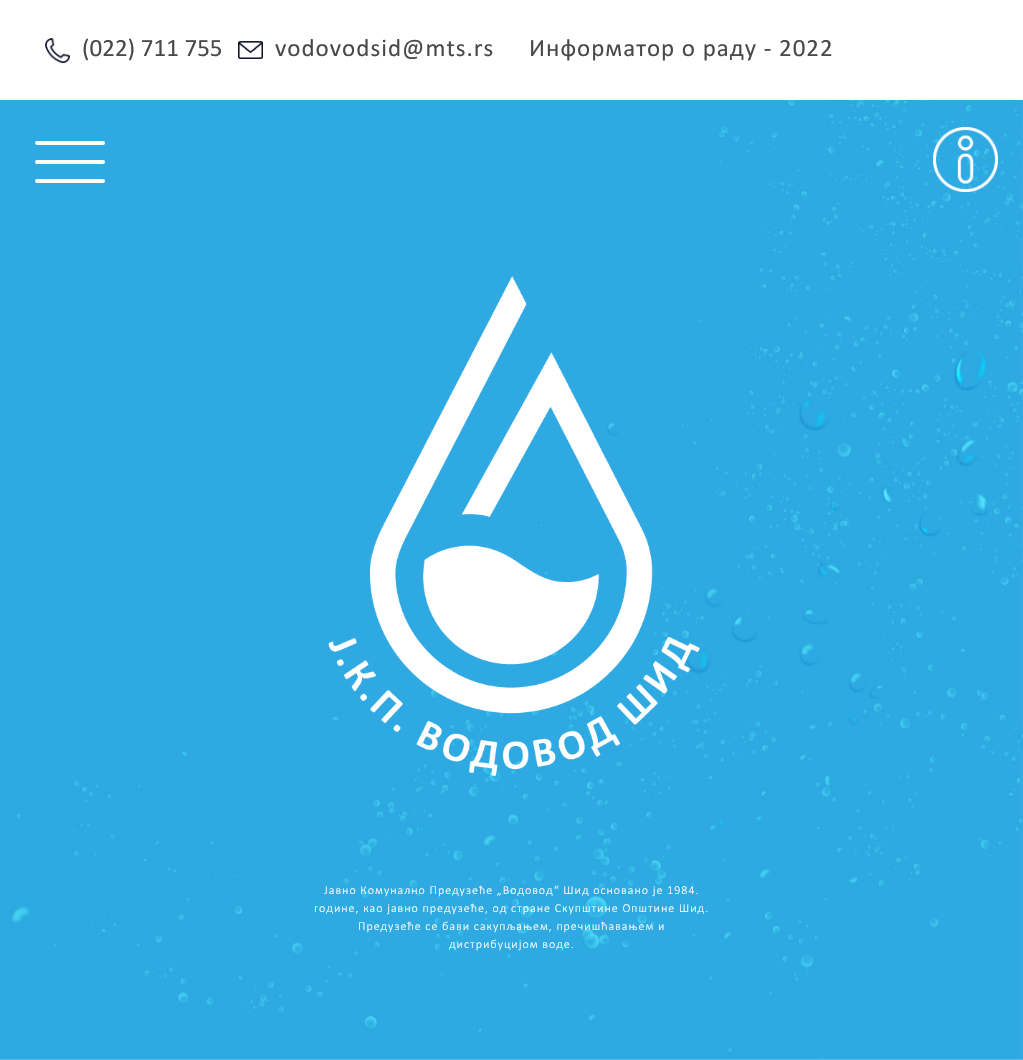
void draw(SkCanvas* c) {
SkPaint p;
p.setAntiAlias(true);
auto F=[&](const char* family, int weight, float size, bool italic = false){SkFontStyle style(weight, SkFontStyle::kNormal_Width,italic ? SkFontStyle::kItalic_Slant : SkFontStyle::kUpright_Slant);SkFont result(fontMgr->matchFamilyStyle(family, style), size);result.setSubpixel(true);return result;};
auto T=[&](const char* s, float x, float y, const SkFont& font){c->drawString(s, x, y, font, p);};
auto L=[&](const char* s, float x, float y, const SkFont& font, const SkPaint& ink, float letter, float word){std::vector<SkGlyphID> glyphs(font.countText(s, strlen(s), SkTextEncoding::kUTF8));std::vector<float> xs(glyphs.size());font.textToGlyphs(s, strlen(s), SkTextEncoding::kUTF8, glyphs);font.getXPos(glyphs, xs, x);float extra = 0;for (size_t i = 0; i < glyphs.size(); i++) {xs[i] += extra;extra += letter + word * (glyphs[i] == font.unicharToGlyph(' '));}c->drawTextBlob(SkTextBlob::MakeFromPosHGlyphs(glyphs, xs, y, font), 0, 0, ink);};
auto Q=[&](float x, float y, float w, float h, float radius){c->drawRoundRect(SkRect::MakeXYWH(x, y, w, h), radius, radius, p);};
auto I=[&](const char* path, float x, float y, float w, float h){auto image = SkImages::DeferredFromEncodedData(SkData::MakeFromFileName(path));c->drawImageRect(image, SkRect::MakeXYWH(x, y, w, h), SkSamplingOptions());};
c->clear(0xffffffff);
I("1.png",0,100,1023,960);
I("2.png",45,38,25,25);
auto f1 = F("Calibri",400,25);
p.setColor(0xff494949);
T("(022) 711 755",82,56,f1);
I("3.png",238,41,25,18);
L("vodovodsid@mts.rs",275,56,f1,p,1,0);
L("Информатор о раду - 2022",529,56,f1,p,1,0);
p.setColor(0xffffffff);
Q(35,141,70,4,2);
Q(35,160,70,4,2);
Q(35,179,70,4,2);
I("4.png",933,127,65,65);
I("5.png",328,276,372,500);
auto f2 = F("Calibri",300,12);
p.setColor(0xfffdfeff);
L("Јавно Комунално Предузеће „Водовод“ Шид основано је 1984.",324,894,f2,p,1,0);
L("године, као јавно предузеће, од стране Скупштине Општине Шид.",314,912,f2,p,1,0);
L("Предузеће се бави сакупљањем, пречишћавањем и",358,930,f2,p,1,0);
L("дистрибуцијом воде.",449,948,f2,p,1,0);
}
